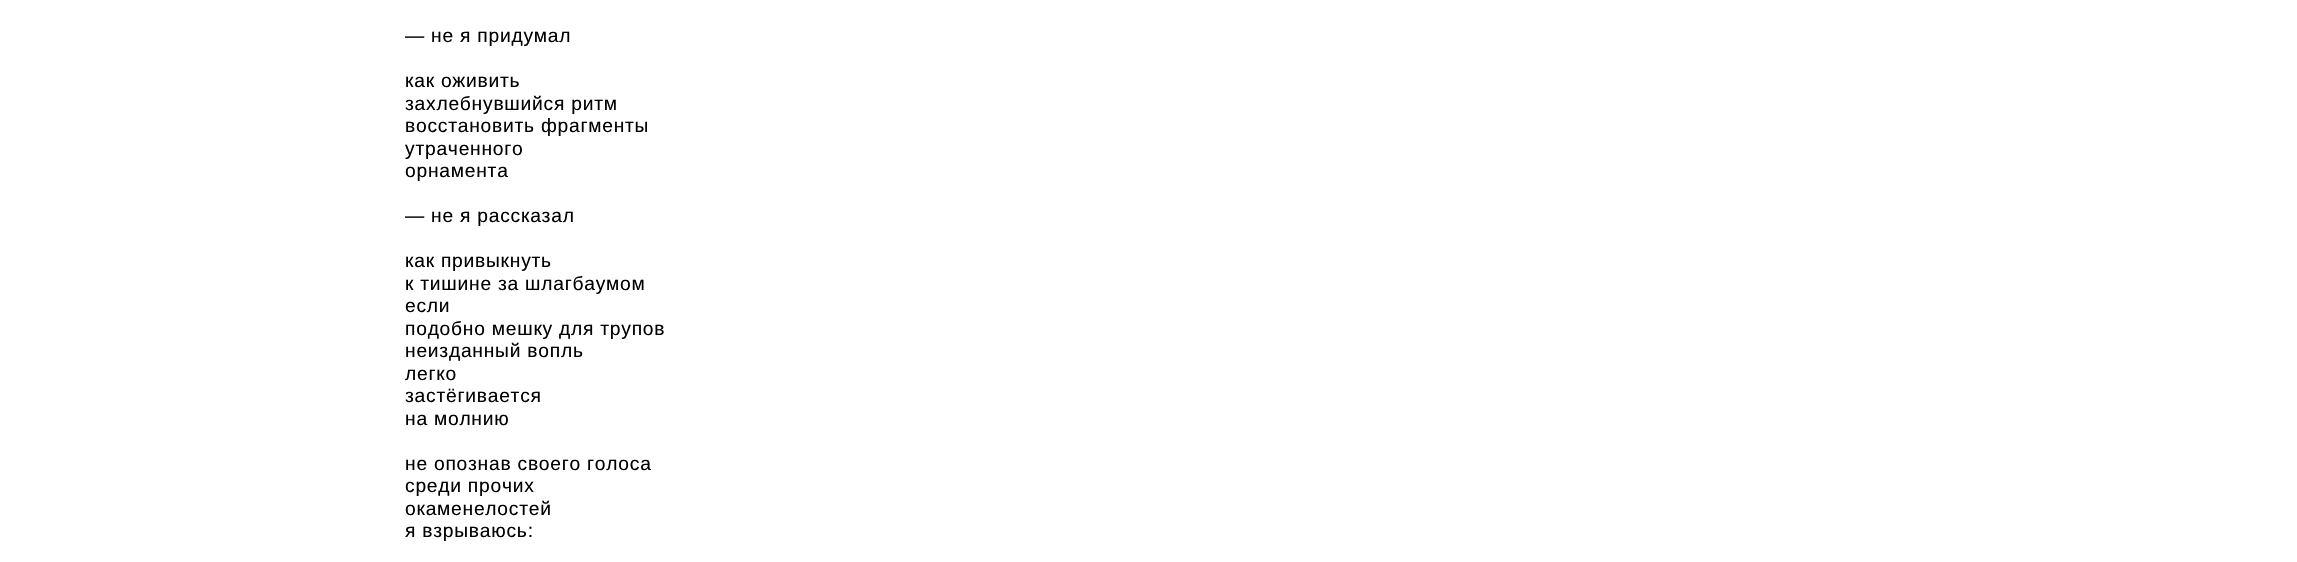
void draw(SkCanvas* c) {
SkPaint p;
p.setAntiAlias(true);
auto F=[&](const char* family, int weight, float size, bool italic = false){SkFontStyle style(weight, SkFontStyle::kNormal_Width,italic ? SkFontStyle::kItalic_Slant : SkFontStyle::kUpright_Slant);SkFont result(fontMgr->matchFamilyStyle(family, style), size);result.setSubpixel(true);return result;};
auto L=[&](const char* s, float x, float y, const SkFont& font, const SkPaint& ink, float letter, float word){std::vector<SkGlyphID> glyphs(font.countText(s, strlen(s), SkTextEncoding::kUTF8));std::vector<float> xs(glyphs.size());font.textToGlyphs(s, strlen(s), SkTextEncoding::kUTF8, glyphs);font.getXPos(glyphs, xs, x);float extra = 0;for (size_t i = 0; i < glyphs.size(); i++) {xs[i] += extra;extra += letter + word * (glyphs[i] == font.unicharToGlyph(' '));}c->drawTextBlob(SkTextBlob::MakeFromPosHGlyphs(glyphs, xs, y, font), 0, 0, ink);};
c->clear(0xffffffff);
auto f1 = F("Liberation Sans",400,19.25);
p.setColor(0xff000000);
L("— не я придумал",405,42,f1,p,.75,0);
L("как оживить",405,87,f1,p,.75,0);
L("захлебнувшийся ритм",405,110,f1,p,.75,0);
L("восстановить фрагменты",405,132,f1,p,.75,0);
L("утраченного",405,155,f1,p,.75,0);
L("орнамента",405,177,f1,p,.75,0);
L("— не я рассказал",405,222,f1,p,.75,0);
L("как привыкнуть",405,267,f1,p,.75,0);
L("к тишине за шлагбаумом",405,290,f1,p,.75,0);
L("если",405,312,f1,p,.75,0);
L("подобно мешку для трупов",405,335,f1,p,.75,0);
L("неизданный вопль",405,357,f1,p,.75,0);
L("легко",405,380,f1,p,.75,0);
L("застёгивается",405,402,f1,p,.75,0);
L("на молнию",405,425,f1,p,.75,0);
L("не опознав своего голоса",405,470,f1,p,.75,0);
L("среди прочих",405,492,f1,p,.75,0);
L("окаменелостей",405,515,f1,p,.75,0);
L("я взрываюсь:",405,537,f1,p,.75,0);
}
